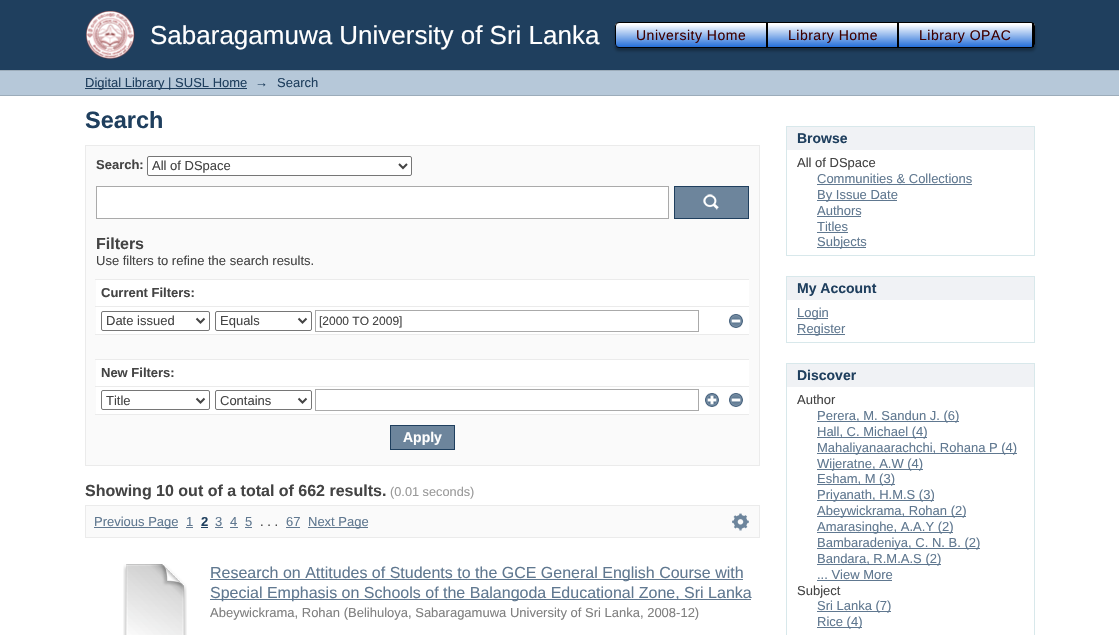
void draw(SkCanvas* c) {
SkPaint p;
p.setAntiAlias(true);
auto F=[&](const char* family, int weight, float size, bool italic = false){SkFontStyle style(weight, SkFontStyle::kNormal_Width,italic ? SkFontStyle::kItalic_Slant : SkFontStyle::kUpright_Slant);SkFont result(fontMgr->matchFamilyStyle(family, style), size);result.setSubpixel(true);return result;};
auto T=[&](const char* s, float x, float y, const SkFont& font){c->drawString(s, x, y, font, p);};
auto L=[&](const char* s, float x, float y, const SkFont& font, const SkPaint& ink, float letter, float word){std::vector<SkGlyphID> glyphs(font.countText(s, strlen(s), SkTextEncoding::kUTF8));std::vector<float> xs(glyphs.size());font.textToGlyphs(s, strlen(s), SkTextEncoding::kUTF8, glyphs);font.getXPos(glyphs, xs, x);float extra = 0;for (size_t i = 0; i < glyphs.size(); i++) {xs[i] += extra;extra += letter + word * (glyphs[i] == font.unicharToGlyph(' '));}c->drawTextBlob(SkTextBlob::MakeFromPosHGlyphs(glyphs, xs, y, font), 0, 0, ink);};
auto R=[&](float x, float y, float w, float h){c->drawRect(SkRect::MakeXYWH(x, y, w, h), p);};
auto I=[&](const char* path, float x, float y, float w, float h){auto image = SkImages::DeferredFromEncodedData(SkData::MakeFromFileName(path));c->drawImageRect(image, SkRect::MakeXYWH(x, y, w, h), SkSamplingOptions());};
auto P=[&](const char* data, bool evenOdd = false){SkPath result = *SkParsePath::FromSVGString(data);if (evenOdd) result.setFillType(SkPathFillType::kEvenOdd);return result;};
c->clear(0xffffffff);
p.setColor(0xff1f3f5e);
R(0,0,1119,70);
I("1.png",86,10,49,49);
auto f1 = F("Liberation Sans",400,26);
p.setColor(0xffffffff);
T("Sabaragamuwa University of Sri Lanka",150,44,f1);
p.setColor(0x4d000000);
p.setMaskFilter(SkMaskFilter::MakeBlur(kNormal_SkBlurStyle, 1.5));
c->drawRoundRect(SkRect::MakeXYWH(615,25,420,26),4,4,p);
p.setMaskFilter(nullptr);
c->save();
c->clipPath(P("M619 22h412c2 0 4 2 4 4v18c0 2-2 4-4 4h-412c-2 0-4-2-4-4v-18c0-2 2-4 4-4z"),true);
{
const SkColor colors[] = {0xffffffff,0xff256fd9};
const float stops[] = {.05,1};
const SkPoint ends[] = {{616,23}, {616,47}};
p.setShader(SkGradientShader::MakeLinear(ends, colors, stops, 2, SkTileMode::kClamp));
p.setAlpha(255);
}
R(615,23,420,24);
c->restore();
p.setStroke(true);
p.setStrokeWidth(1);
p.setShader(nullptr);
p.setColor(0xff000000);
c->drawRoundRect(SkRect::MakeXYWH(615.5,22.5,419,25),3.5,3.5,p);
p.setStroke(false);
R(766,23,2,24);
auto f2 = F("Liberation Sans",400,14);
p.setColor(0xff3e0000);
L("University Home",636,40,f2,p,.5,0);
p.setColor(0xff000000);
R(897,23,2,24);
p.setColor(0xff3e0000);
L("Library Home",788,40,f2,p,.5,0);
p.setColor(0xff000000);
R(1032,23,2,24);
p.setColor(0xff3e0000);
L("Library OPAC",919,40,f2,p,.5,0);
p.setColor(0xffb6c8d9);
R(0,71,1119,24);
p.setColor(0xff9cacba);
R(0,70,1119,1);
R(0,95,1119,1);
p.setColor(0xff1f3f5e);
R(85,88,162,1);
auto f3 = F("Liberation Sans",400,13);
T("Digital Library | SUSL Home",85,87,f3);
T("→",255,87,f3);
T("Search",277,87,f3);
auto f4 = F("Liberation Sans",700,23.5);
T("Search",85,128,f4);
p.setColor(0xfffafafa);
c->drawRect(SkRect::MakeXYWH(85.5,145.5,674,320),p);
p.setStroke(true);
p.setColor(0xffebebeb);
c->drawRect(SkRect::MakeXYWH(85.5,145.5,674,320),p);
auto f5 = F("Liberation Sans",700,13);
p.setStroke(false);
p.setColor(0xff444444);
T("Search:",96,169,f5);
p.setColor(0xffffffff);
c->drawRoundRect(SkRect::MakeXYWH(147.5,156.5,264,19),1.5,1.5,p);
p.setStroke(true);
p.setColor(0xff767676);
c->drawRoundRect(SkRect::MakeXYWH(147.5,156.5,264,19),1.5,1.5,p);
p.setStrokeWidth(2);
p.setColor(0xff444444);
c->drawPath(P("M399 164l4 4l4-4"),p);
p.setStroke(false);
T("All of DSpace",152,170,f3);
p.setColor(0xffffffff);
c->drawRect(SkRect::MakeXYWH(96.5,186.5,572,32),p);
p.setStroke(true);
p.setStrokeWidth(1);
p.setColor(0xffaaaaaa);
c->drawRect(SkRect::MakeXYWH(96.5,186.5,572,32),p);
p.setStroke(false);
p.setColor(0xff6d859c);
R(675,187,73,31);
I("2.png",703,194,16,16);
p.setStroke(true);
p.setColor(0xff1f3f5e);
c->drawRect(SkRect::MakeXYWH(674.5,186.5,74,32),p);
auto f6 = F("Liberation Sans",700,16);
p.setStroke(false);
p.setColor(0xff444444);
T("Filters",96,249,f6);
T("Use filters to refine the search results.",96,265,f3);
p.setColor(0xffffffff);
R(96,280,653,134);
p.setColor(0xffebebeb);
R(95,279,654,1);
p.setColor(0xff444444);
T("Current Filters:",101,297,f5);
p.setColor(0xffebebeb);
R(95,306,654,1);
p.setStroke(true);
p.setColor(0xff767676);
c->drawRoundRect(SkRect::MakeXYWH(101.5,311.5,108,19),1.5,1.5,p);
p.setStrokeWidth(2);
p.setColor(0xff444444);
c->drawPath(P("M196.5 318.5l4 4l4-4"),p);
p.setStroke(false);
T("Date issued",106,325,f3);
p.setStroke(true);
p.setStrokeWidth(1);
p.setColor(0xff767676);
c->drawRoundRect(SkRect::MakeXYWH(215.5,311.5,96,19),1.5,1.5,p);
p.setStrokeWidth(2);
p.setColor(0xff444444);
c->drawPath(P("M298.5 318.5l4 4l4-4"),p);
p.setStroke(false);
T("Equals",220,325,f3);
p.setStroke(true);
p.setStrokeWidth(1);
p.setColor(0xffaaaaaa);
c->drawRect(SkRect::MakeXYWH(315.5,310.5,383,21),p);
auto f7 = F("Liberation Sans",400,12);
p.setStroke(false);
p.setColor(0xff444444);
T("[2000 TO 2009]",319,325,f7);
I("3.png",729,314,14,14);
p.setColor(0xfffafafa);
R(96,335,653,24);
p.setColor(0xffebebeb);
R(95,334,654,1);
R(95,359,654,1);
p.setColor(0xff444444);
T("New Filters:",101,377,f5);
p.setColor(0xffebebeb);
R(95,386,654,1);
p.setStroke(true);
p.setColor(0xff767676);
c->drawRoundRect(SkRect::MakeXYWH(101.5,390.5,108,19),1.5,1.5,p);
p.setStrokeWidth(2);
p.setColor(0xff444444);
c->drawPath(P("M196.5 398.5l4 4l4-4"),p);
p.setStroke(false);
T("Title",106,405,f3);
p.setStroke(true);
p.setStrokeWidth(1);
p.setColor(0xff767676);
c->drawRoundRect(SkRect::MakeXYWH(215.5,390.5,96,19),1.5,1.5,p);
p.setStrokeWidth(2);
p.setColor(0xff444444);
c->drawPath(P("M298.5 398.5l4 4l4-4"),p);
p.setStroke(false);
T("Contains",220,405,f3);
p.setStroke(true);
p.setStrokeWidth(1);
p.setColor(0xffaaaaaa);
c->drawRect(SkRect::MakeXYWH(315.5,389.5,383,21),p);
I("4.png",705,393,14,14);
I("3.png",729,393,14,14);
p.setStroke(false);
p.setColor(0xffebebeb);
R(95,414,654,1);
p.setColor(0xff6d859c);
c->drawRect(SkRect::MakeXYWH(390.5,425.5,64,24),p);
p.setStroke(true);
p.setColor(0xff1f3f5e);
c->drawRect(SkRect::MakeXYWH(390.5,425.5,64,24),p);
auto f8 = F("Liberation Sans",700,14);
p.setStroke(false);
p.setColor(0xffffffff);
T("Apply",403,442,f8);
p.setColor(0xff444444);
T("Showing 10 out of a total of 662 results.",85,496,f6);
auto f9 = F("Liberation Sans",400,12.75);
p.setColor(0xff999999);
T("(0.01 seconds)",390,496,f9);
p.setColor(0xfffafafa);
c->drawRect(SkRect::MakeXYWH(85.5,505.5,674,32),p);
p.setStroke(true);
p.setColor(0xffebebeb);
c->drawRect(SkRect::MakeXYWH(85.5,505.5,674,32),p);
p.setStroke(false);
p.setColor(0xff607890);
R(94,527,84,1);
T("Previous Page",94,526,f3);
T("1",186,526,f3);
R(186,527,7,1);
p.setColor(0xff1f3f5e);
T("2",201,526,f5);
R(201,527,7,1);
p.setColor(0xff607890);
T("3",215,526,f3);
R(215,527,8,1);
T("4",230,526,f3);
R(230,527,8,1);
T("5",245,526,f3);
R(245,527,7,1);
p.setColor(0xff444444);
T(". . .",260,526,f3);
p.setColor(0xff607890);
T("67",286,526,f3);
R(286,527,14,1);
R(308,527,60,1);
T("Next Page",308,526,f3);
I("5.png",732,513,17,18);
I("6.png",123,564,64,71);
R(210,579,533,1);
auto f10 = F("Liberation Sans",400,16);
T("Research on Attitudes of Students to the GCE General English Course with",210,578,f10);
R(210,599,541,1);
T("Special Emphasis on Schools of the Balangoda Educational Zone, Sri Lanka",210,598,f10);
p.setColor(0xff808080);
T("Abeywickrama, Rohan (Belihuloya, Sabaragamuwa University of Sri Lanka, 2008-12)",210,617,f3);
p.setColor(0xfff0f2f5);
R(787,127,247,23);
p.setColor(0xffd8e8eb);
R(786,126,249,1);
R(1034,126,1,130);
R(786,126,1,24);
p.setColor(0xff1f3f5e);
T("Browse",797,143,f8);
p.setColor(0xffd8e8eb);
R(786,255,249,1);
R(786,150,1,106);
p.setColor(0xff444444);
T("All of DSpace",797,167,f3);
p.setColor(0xff607890);
T("Communities & Collections",817,183,f3);
R(817,184,155,1);
R(817,200,80,1);
T("By Issue Date",817,199,f3);
T("Authors",817,215,f3);
R(817,216,44,1);
T("Titles",817,231,f3);
R(817,232,31,1);
R(817,247,49,1);
T("Subjects",817,246,f3);
p.setColor(0xfff0f2f5);
R(787,277,247,23);
p.setColor(0xffd8e8eb);
R(786,276,249,1);
R(1034,276,1,67);
R(786,276,1,24);
p.setColor(0xff1f3f5e);
T("My Account",797,293,f8);
p.setColor(0xffd8e8eb);
R(786,342,249,1);
R(786,300,1,43);
p.setColor(0xff607890);
R(797,318,31,1);
T("Login",797,317,f3);
R(797,334,48,1);
T("Register",797,333,f3);
p.setColor(0xfff0f2f5);
R(787,364,247,23);
p.setColor(0xffd8e8eb);
R(786,363,249,1);
R(1034,363,1,272);
R(786,363,1,272);
p.setColor(0xff1f3f5e);
T("Discover",797,380,f8);
p.setColor(0xff444444);
T("Author",797,404,f3);
p.setColor(0xff607890);
R(817,421,142,1);
T("Perera, M. Sandun J. (6)",817,420,f3);
R(817,437,110,1);
T("Hall, C. Michael (4)",817,436,f3);
R(817,453,200,1);
T("Mahaliyanaarachchi, Rohana P (4)",817,452,f3);
R(817,469,106,1);
T("Wijeratne, A.W (4)",817,468,f3);
R(817,484,78,1);
T("Esham, M (3)",817,483,f3);
R(817,500,117,1);
T("Priyanath, H.M.S (3)",817,499,f3);
R(817,516,149,1);
T("Abeywickrama, Rohan (2)",817,515,f3);
R(817,532,136,1);
T("Amarasinghe, A.A.Y (2)",817,531,f3);
R(817,548,163,1);
T("Bambaradeniya, C. N. B. (2)",817,547,f3);
R(817,564,124,1);
T("Bandara, R.M.A.S (2)",817,563,f3);
T("... View More",817,579,f3);
R(817,580,75,1);
p.setColor(0xff444444);
T("Subject",797,595,f3);
p.setColor(0xff607890);
R(817,611,74,1);
T("Sri Lanka (7)",817,610,f3);
R(817,627,45,1);
T("Rice (4)",817,626,f3);
}
